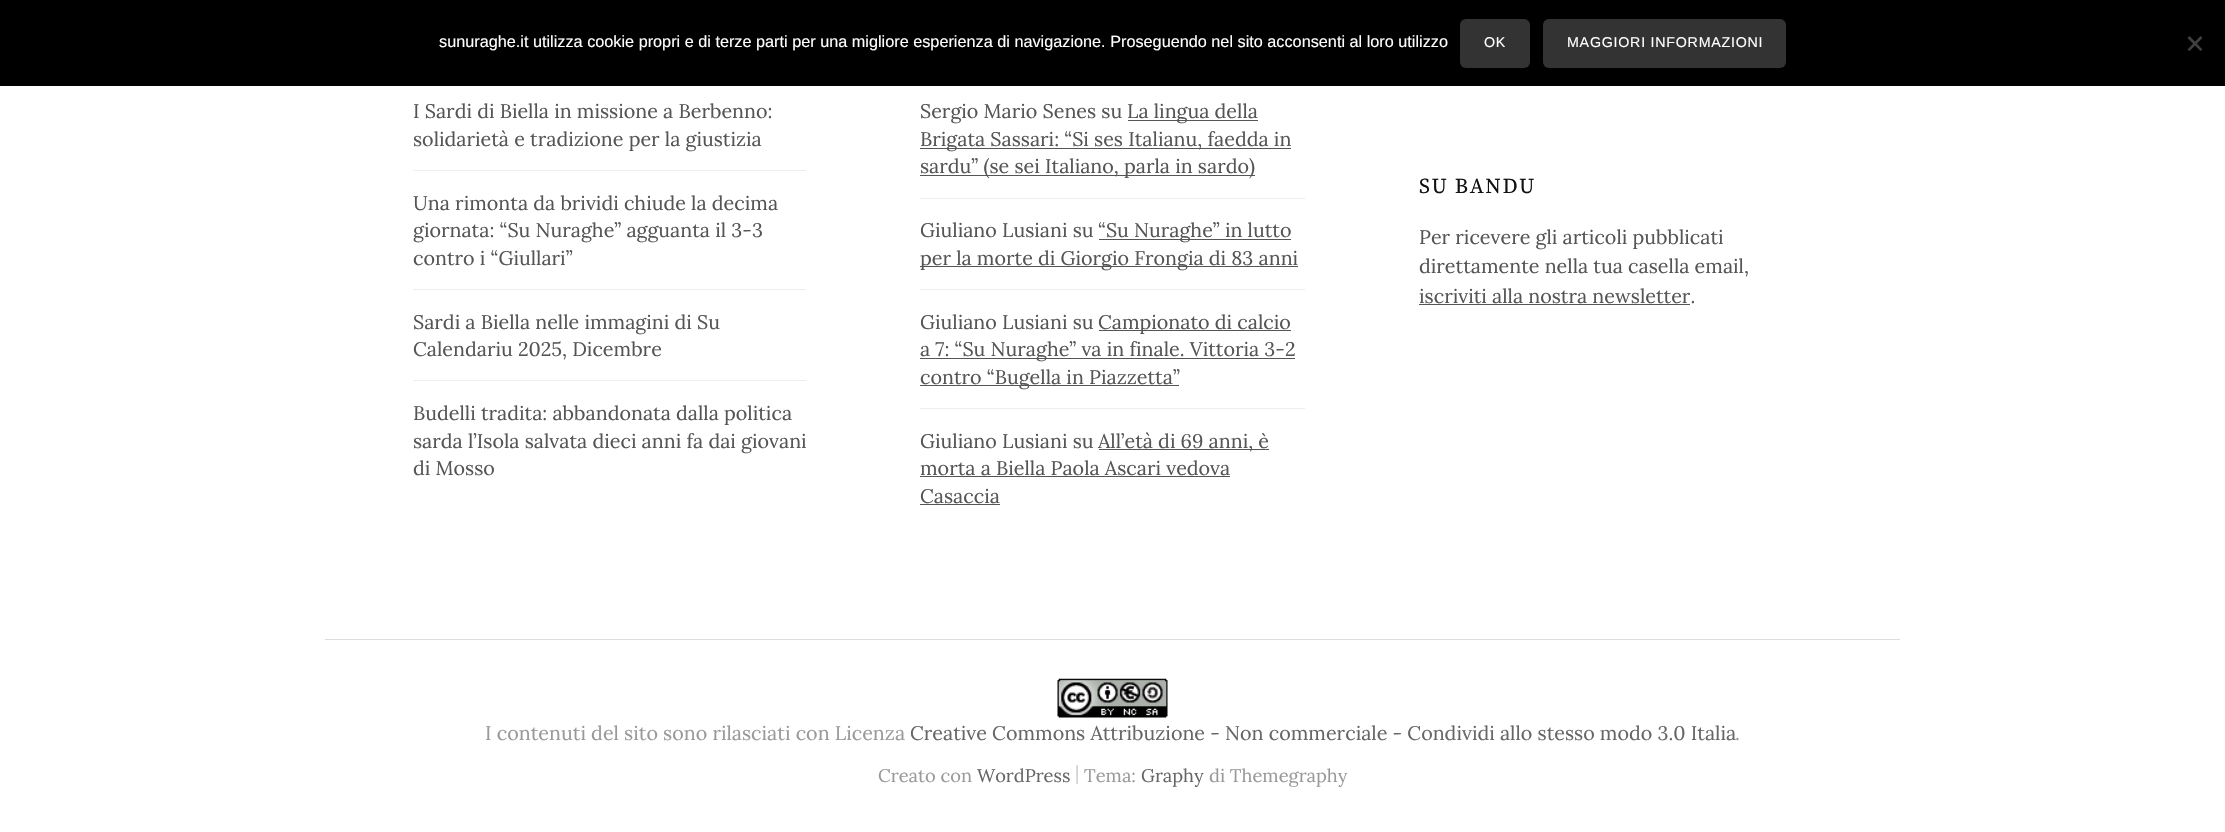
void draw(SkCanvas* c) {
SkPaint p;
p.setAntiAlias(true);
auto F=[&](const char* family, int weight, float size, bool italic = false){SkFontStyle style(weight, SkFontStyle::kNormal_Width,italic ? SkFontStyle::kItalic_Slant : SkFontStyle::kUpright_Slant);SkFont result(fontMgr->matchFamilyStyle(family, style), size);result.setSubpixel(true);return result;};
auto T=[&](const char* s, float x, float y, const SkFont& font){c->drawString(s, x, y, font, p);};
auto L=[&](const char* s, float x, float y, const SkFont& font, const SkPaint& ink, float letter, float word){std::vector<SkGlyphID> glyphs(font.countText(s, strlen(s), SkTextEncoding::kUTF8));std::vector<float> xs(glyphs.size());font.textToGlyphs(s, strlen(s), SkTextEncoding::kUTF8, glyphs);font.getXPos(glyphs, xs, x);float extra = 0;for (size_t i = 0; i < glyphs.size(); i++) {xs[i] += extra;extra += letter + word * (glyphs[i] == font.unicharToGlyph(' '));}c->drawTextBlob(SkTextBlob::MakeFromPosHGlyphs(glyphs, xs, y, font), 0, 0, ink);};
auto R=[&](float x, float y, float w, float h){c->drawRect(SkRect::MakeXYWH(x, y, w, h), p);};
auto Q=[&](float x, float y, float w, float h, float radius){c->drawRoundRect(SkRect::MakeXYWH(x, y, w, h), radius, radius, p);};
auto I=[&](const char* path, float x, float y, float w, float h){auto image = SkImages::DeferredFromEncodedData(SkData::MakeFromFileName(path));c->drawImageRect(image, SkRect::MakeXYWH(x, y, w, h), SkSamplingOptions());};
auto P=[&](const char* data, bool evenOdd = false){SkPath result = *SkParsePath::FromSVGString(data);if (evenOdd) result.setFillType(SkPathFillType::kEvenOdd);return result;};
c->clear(0xffffffff);
p.setColor(0xff000000);
R(0,0,2225,86);
auto f1 = F("Liberation Sans",400,16.25);
p.setColor(0xffffffff);
T("sunuraghe.it utilizza cookie propri e di terze parti per una migliore esperienza di navigazione. Proseguendo nel sito acconsenti al loro utilizzo",439,47,f1);
p.setColor(0xff333333);
Q(1460,19,70,49,6);
auto f2 = F("Liberation Sans",400,14.25);
p.setColor(0xffffffff);
L("OK",1484,47,f2,p,.75,0);
p.setColor(0xff333333);
Q(1543,19,243,49,6);
p.setColor(0xffffffff);
L("MAGGIORI INFORMAZIONI",1567,47,f2,p,.75,0);
p.setColor(0xff404040);
c->drawPath(P("M2200.5 36l2 2l-13 13l-2-1.5z"),p);
c->drawPath(P("M2187.5 38l2-2l13 13.5l-2 1.5z"),p);
auto f3 = F("Lora",400,19.7);
p.setColor(0xff555555);
T("I Sardi di Biella in missione a Berbenno:",413,118,f3);
T("solidarietà e tradizione per la giustizia",413,146,f3);
p.setColor(0xffeeeeee);
R(413,170,393,1);
p.setColor(0xff555555);
T("Una rimonta da brividi chiude la decima",413,210,f3);
T("giornata: “Su Nuraghe” agguanta il 3-3",413,237,f3);
T("contro i “Giullari”",413,265,f3);
p.setColor(0xffeeeeee);
R(413,289,393,1);
p.setColor(0xff555555);
T("Sardi a Biella nelle immagini di Su",413,329,f3);
T("Calendariu 2025, Dicembre",413,356,f3);
p.setColor(0xffeeeeee);
R(413,380,393,1);
p.setColor(0xff555555);
T("Budelli tradita: abbandonata dalla politica",413,420,f3);
T("sarda l’Isola salvata dieci anni fa dai giovani",413,448,f3);
T("di Mosso",413,475,f3);
T("Sergio Mario Senes su",920,118,f3);
R(1128,120,130,1);
T("La lingua della",1127,118,f3);
R(920,148,371,1);
T("Brigata Sassari: “Si ses Italianu, faedda in",920,146,f3);
R(920,175,335,1);
T("sardu” (se sei Italiano, parla in sardo)",920,173,f3);
p.setColor(0xffeeeeee);
R(920,198,385,1);
p.setColor(0xff555555);
T("Giuliano Lusiani su",920,237,f3);
R(1099,239,192,1);
T("“Su Nuraghe” in lutto",1098,237,f3);
R(920,266,378,1);
T("per la morte di Giorgio Frongia di 83 anni",920,265,f3);
p.setColor(0xffeeeeee);
R(920,289,385,1);
p.setColor(0xff555555);
T("Giuliano Lusiani su",920,329,f3);
R(1099,330,192,1);
T("Campionato di calcio",1098,329,f3);
R(920,358,375,1);
T("a 7: “Su Nuraghe” va in finale. Vittoria 3-2",920,356,f3);
R(920,385,259,1);
T("contro “Bugella in Piazzetta”",920,384,f3);
p.setColor(0xffeeeeee);
R(920,408,385,1);
p.setColor(0xff555555);
T("Giuliano Lusiani su",920,448,f3);
R(1099,449,170,1);
T("All’età di 69 anni, è",1098,448,f3);
T("morta a Biella Paola Ascari vedova",920,475,f3);
R(920,476,310,1);
T("Casaccia",920,503,f3);
R(920,504,80,1);
auto f4 = F("Source Serif Pro",400,21.25);
p.setColor(0xff111111);
L("SU BANDU",1419,193,f4,p,1.5,0);
p.setColor(0xff555555);
T("Per ricevere gli articoli pubblicati",1419,244,f3);
T("direttamente nella tua casella email,",1419,273,f3);
T("iscriviti alla nostra newsletter.",1419,303,f3);
R(1419,304,271,1);
p.setColor(0xffdddddd);
R(325,639,1575,1);
I("1.png",1057,678,111,40);
p.setColor(0xff999999);
T("I contenuti del sito sono rilasciati con Licenza",485,740,f3);
p.setColor(0xff666666);
T("Creative Commons Attribuzione - Non commerciale - Condividi allo stesso modo 3.0 Italia",910,740,f3);
p.setColor(0xff999999);
T(".",1735,740,f3);
auto f5 = F("Lora",400,18.25);
T("Creato con",878,782,f5);
p.setColor(0xff666666);
T("WordPress",977,782,f5);
p.setColor(0xffcccccc);
T("|",1075,779,f5);
p.setColor(0xff999999);
T("Tema:",1084,782,f5);
p.setColor(0xff666666);
T("Graphy",1141,782,f5);
p.setColor(0xff999999);
T("di Themegraphy",1209,782,f5);
}
